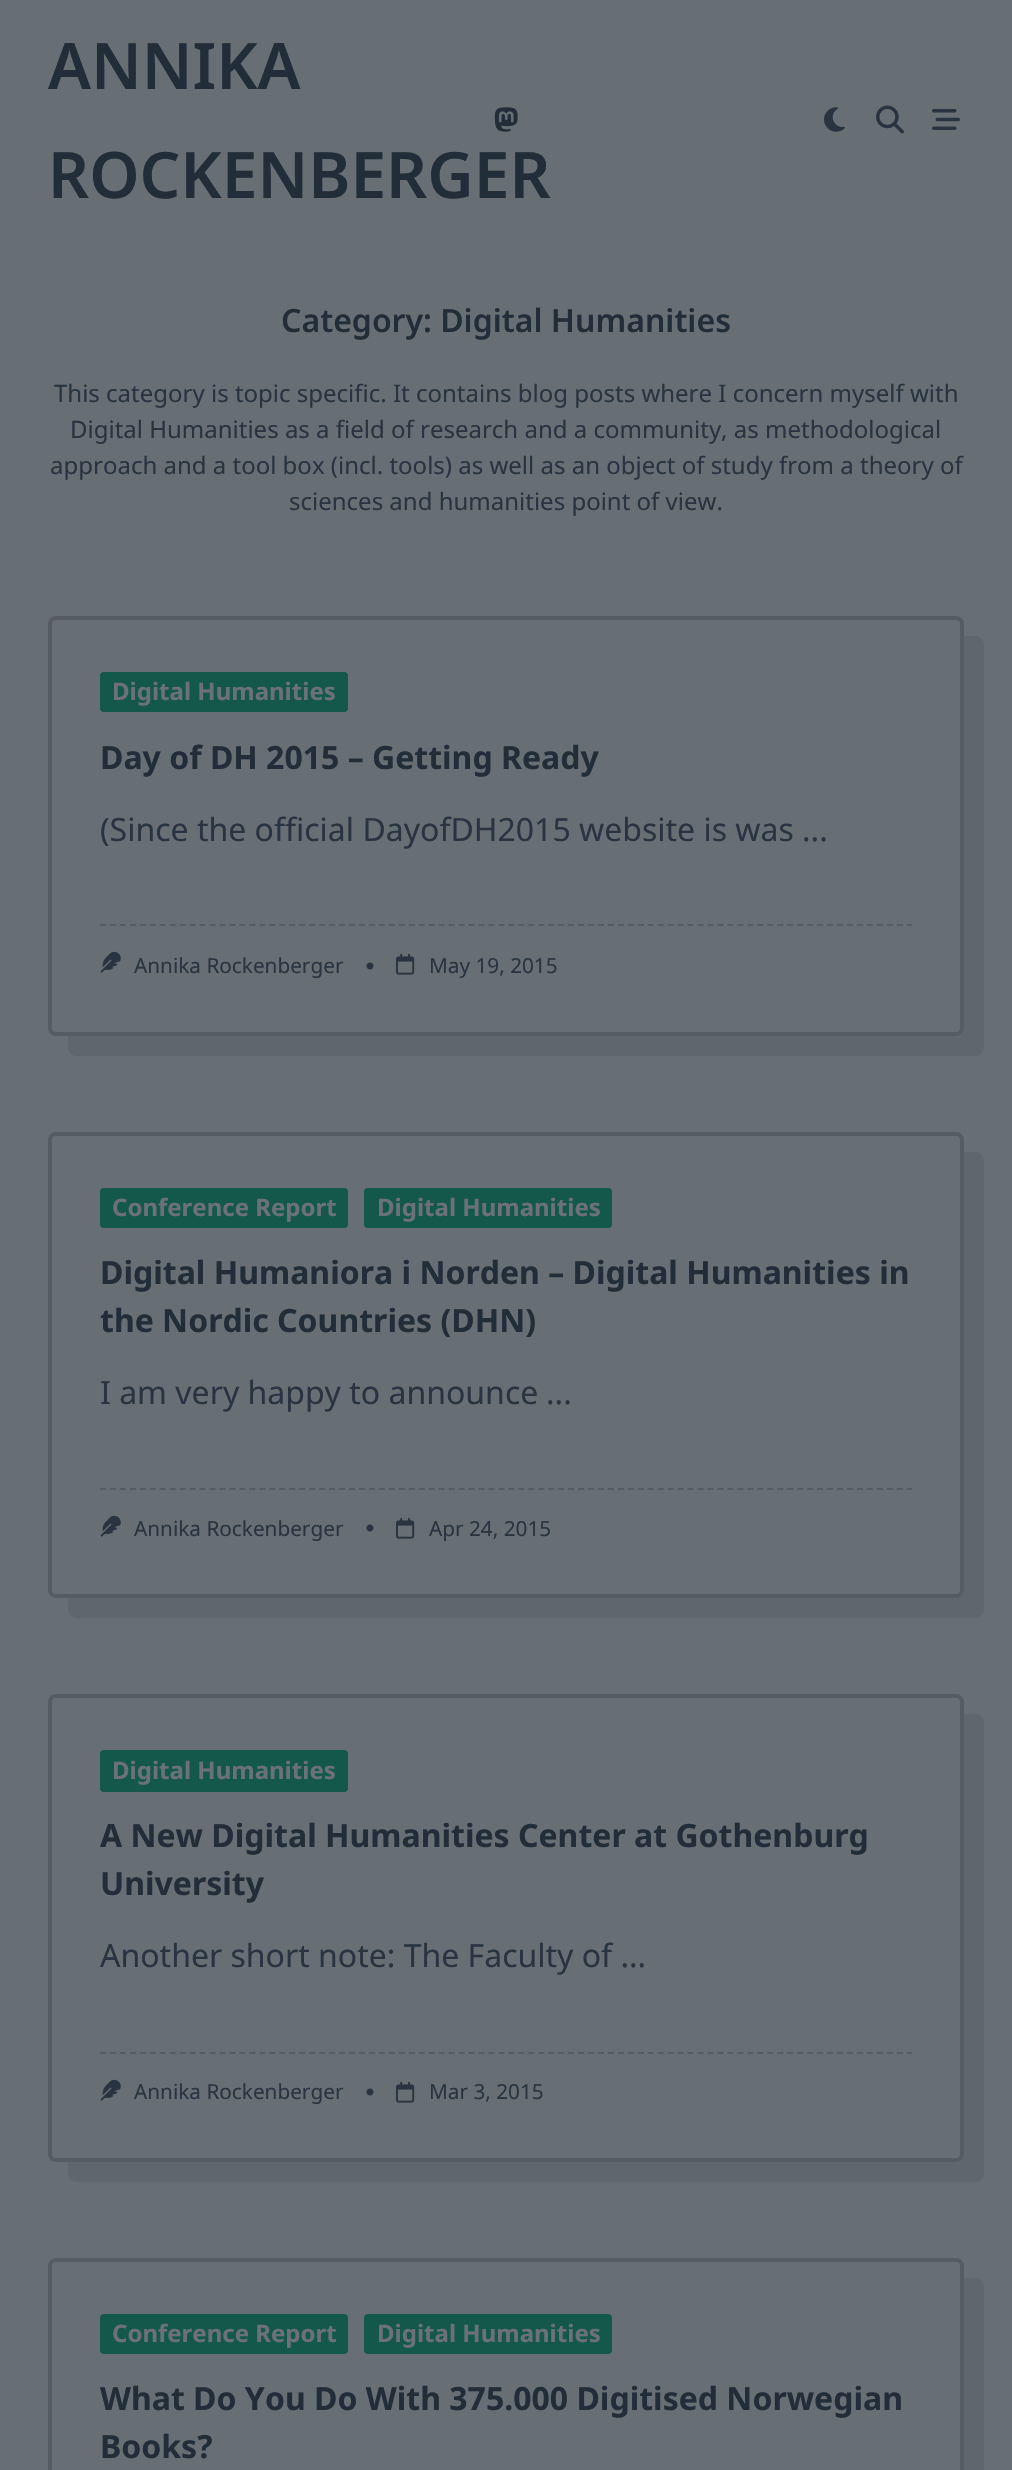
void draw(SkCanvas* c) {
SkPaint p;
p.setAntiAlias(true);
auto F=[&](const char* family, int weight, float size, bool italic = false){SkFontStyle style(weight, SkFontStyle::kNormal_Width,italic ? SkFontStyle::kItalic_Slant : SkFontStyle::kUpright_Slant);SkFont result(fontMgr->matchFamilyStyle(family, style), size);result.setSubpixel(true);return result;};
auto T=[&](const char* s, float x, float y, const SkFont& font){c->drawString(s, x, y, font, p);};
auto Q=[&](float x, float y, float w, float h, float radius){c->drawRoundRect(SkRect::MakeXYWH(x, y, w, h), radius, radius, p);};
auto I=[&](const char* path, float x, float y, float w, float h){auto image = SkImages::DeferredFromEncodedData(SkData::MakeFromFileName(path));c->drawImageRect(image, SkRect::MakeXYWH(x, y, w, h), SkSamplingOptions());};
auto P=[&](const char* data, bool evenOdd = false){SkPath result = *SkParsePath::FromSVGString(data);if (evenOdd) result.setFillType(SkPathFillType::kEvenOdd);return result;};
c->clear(0xff686f74);
auto f1 = F("Noto Sans",600,64);
p.setColor(0xff212d39);
T("ANNIKA",48,89,f1);
T("ROCKENBERGER",48,198,f1);
I("1.png",824,107,21,25);
I("2.png",876,105,28,29);
I("3.png",932,109,28,21);
I("4.png",494,107,24,25);
auto f2 = F("Noto Sans",600,32);
T("Category: Digital Humanities",281,332,f2);
auto f3 = F("Noto Sans",400,24);
p.setColor(0xff283441);
T("This category is topic specific. It contains blog posts where I concern myself with",54,402,f3);
T("Digital Humanities as a field of research and a community, as methodological",70,438,f3);
T("approach and a tool box (incl. tools) as well as an object of study from a theory of",50,474,f3);
T("sciences and humanities point of view.",289,510,f3);
p.setColor(0xff5f666c);
c->drawPath(P("M68 1036v12c0 4 4 8 8 8h900c4 0 8-4 8-8v-404c0-4-4-8-8-8h-12v392c0 4-4 8-8 8z"),p);
p.setColor(0xff686f74);
c->drawRoundRect(SkRect::MakeXYWH(50,618,912,416),6,6,p);
p.setStroke(true);
p.setStrokeWidth(4);
p.setColor(0xff565c62);
c->drawRoundRect(SkRect::MakeXYWH(50,618,912,416),6,6,p);
p.setStroke(false);
p.setColor(0xff145849);
Q(100,672,248,40,4);
auto f4 = F("Noto Sans",700,24);
p.setColor(0xff6b7177);
T("Digital Humanities",112,700,f4);
auto f5 = F("Noto Sans",700,32);
p.setColor(0xff212d39);
T("Day of DH 2015 – Getting Ready",100,769,f5);
auto f6 = F("Noto Sans",400,32);
p.setColor(0xff283441);
T("(Since the official DayofDH2015 website is was ...",100,841,f6);
p.setStroke(true);
p.setStrokeWidth(2);
p.setColor(0xff565c62);
p.setPathEffect(SkDashPathEffect::Make({{6,3.96f}}, 0));
c->drawPath(P("M100 925h812"),p);
p.setPathEffect(nullptr);
I("5.png",100,951,21,22);
auto f7 = F("Noto Sans",400,20.75);
p.setStroke(false);
p.setColor(0xff283441);
T("Annika Rockenberger",134,973,f7);
I("6.png",366,962,8,8);
I("7.png",396,953,19,22);
T("May 19, 2015",429,973,f7);
p.setColor(0xff5f666c);
c->drawPath(P("M68 1598v12c0 4 4 8 8 8h900c4 0 8-4 8-8v-450c0-4-4-8-8-8h-12v438c0 4-4 8-8 8z"),p);
p.setColor(0xff686f74);
c->drawRoundRect(SkRect::MakeXYWH(50,1134,912,462),6,6,p);
p.setStroke(true);
p.setStrokeWidth(4);
p.setColor(0xff565c62);
c->drawRoundRect(SkRect::MakeXYWH(50,1134,912,462),6,6,p);
p.setStroke(false);
p.setColor(0xff145849);
Q(100,1188,248,40,4);
p.setColor(0xff6b7177);
T("Conference Report",112,1216,f4);
p.setColor(0xff145849);
Q(364,1188,248,40,4);
p.setColor(0xff6b7177);
T("Digital Humanities",377,1216,f4);
p.setColor(0xff212d39);
T("Digital Humaniora i Norden – Digital Humanities in",100,1284,f5);
T("the Nordic Countries (DHN)",100,1332,f5);
p.setColor(0xff283441);
T("I am very happy to announce",100,1404,f6);
T("...",546,1404,f6);
p.setStroke(true);
p.setStrokeWidth(2);
p.setColor(0xff565c62);
p.setPathEffect(SkDashPathEffect::Make({{6,3.96f}}, 0));
c->drawPath(P("M100 1489h812"),p);
p.setPathEffect(nullptr);
I("5.png",100,1515,21,22);
p.setStroke(false);
p.setColor(0xff283441);
T("Annika Rockenberger",134,1536,f7);
I("6.png",366,1524,8,8);
I("7.png",396,1517,19,22);
T("Apr 24, 2015",429,1536,f7);
p.setColor(0xff5f666c);
c->drawPath(P("M68 2162v12c0 4 4 8 8 8h900c4 0 8-4 8-8v-452c0-4-4-8-8-8h-12v440c0 4-4 8-8 8z"),p);
p.setColor(0xff686f74);
c->drawRoundRect(SkRect::MakeXYWH(50,1696,912,464),6,6,p);
p.setStroke(true);
p.setStrokeWidth(4);
p.setColor(0xff565c62);
c->drawRoundRect(SkRect::MakeXYWH(50,1696,912,464),6,6,p);
p.setStroke(false);
p.setColor(0xff145849);
Q(100,1750,248,42,4);
p.setColor(0xff6b7177);
T("Digital Humanities",112,1779,f4);
p.setColor(0xff212d39);
T("A New Digital Humanities Center at Gothenburg",100,1847,f5);
T("University",100,1895,f5);
p.setColor(0xff283441);
T("Another short note: The Faculty of ...",100,1967,f6);
p.setStroke(true);
p.setStrokeWidth(2);
p.setColor(0xff565c62);
p.setPathEffect(SkDashPathEffect::Make({{6,3.96f}}, 0));
c->drawPath(P("M100 2053h812"),p);
p.setPathEffect(nullptr);
I("5.png",100,2079,21,22);
p.setStroke(false);
p.setColor(0xff283441);
T("Annika Rockenberger",134,2099,f7);
I("6.png",366,2088,8,8);
I("7.png",396,2081,19,22);
T("Mar 3, 2015",429,2099,f7);
p.setColor(0xff5f666c);
c->drawPath(P("M68 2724v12c0 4 4 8 8 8h900c4 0 8-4 8-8v-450c0-4-4-8-8-8h-12v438c0 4-4 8-8 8z"),p);
p.setStroke(true);
p.setStrokeWidth(4);
p.setColor(0xff565c62);
c->drawRoundRect(SkRect::MakeXYWH(50,2260,912,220),6,6,p);
p.setStroke(false);
p.setColor(0xff145849);
Q(100,2314,248,40,4);
p.setColor(0xff6b7177);
T("Conference Report",112,2342,f4);
p.setColor(0xff145849);
Q(364,2314,248,40,4);
p.setColor(0xff6b7177);
T("Digital Humanities",377,2342,f4);
p.setColor(0xff212d39);
T("What Do You Do With 375.000 Digitised Norwegian",100,2410,f5);
T("Books?",100,2458,f5);
}
